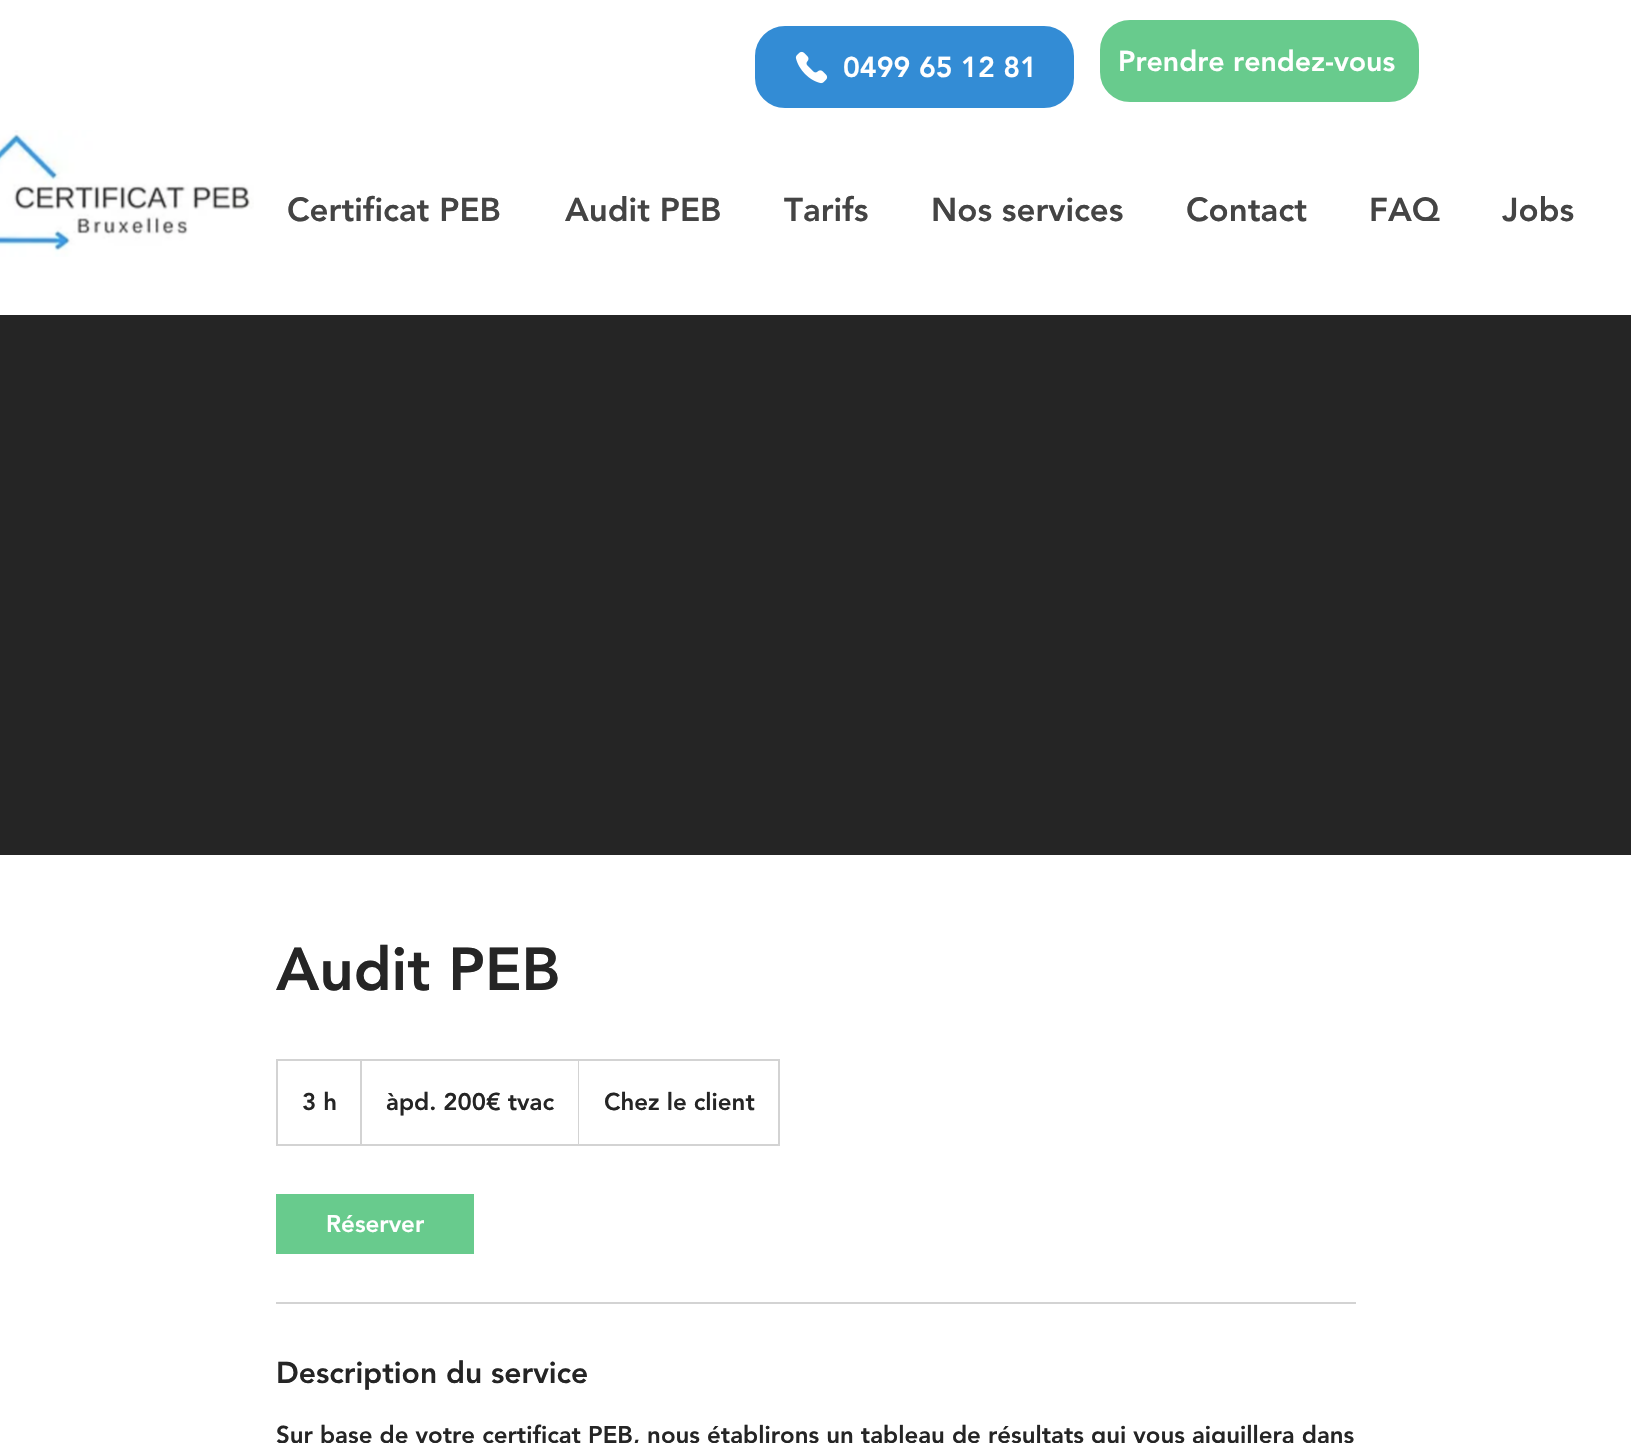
void draw(SkCanvas* c) {
SkPaint p;
p.setAntiAlias(true);
auto F=[&](const char* family, int weight, float size, bool italic = false){SkFontStyle style(weight, SkFontStyle::kNormal_Width,italic ? SkFontStyle::kItalic_Slant : SkFontStyle::kUpright_Slant);SkFont result(fontMgr->matchFamilyStyle(family, style), size);result.setSubpixel(true);return result;};
auto T=[&](const char* s, float x, float y, const SkFont& font){c->drawString(s, x, y, font, p);};
auto R=[&](float x, float y, float w, float h){c->drawRect(SkRect::MakeXYWH(x, y, w, h), p);};
auto I=[&](const char* path, float x, float y, float w, float h){auto image = SkImages::DeferredFromEncodedData(SkData::MakeFromFileName(path));c->drawImageRect(image, SkRect::MakeXYWH(x, y, w, h), SkSamplingOptions());};
auto P=[&](const char* data, bool evenOdd = false){SkPath result = *SkParsePath::FromSVGString(data);if (evenOdd) result.setFillType(SkPathFillType::kEvenOdd);return result;};
c->clear(0xffffffff);
p.setColor(0xff338cd5);
c->drawRoundRect(SkRect::MakeXYWH(756.5,27.5,316,79),28.5,28.5,p);
p.setStroke(true);
p.setStrokeWidth(3);
c->drawRoundRect(SkRect::MakeXYWH(756.5,27.5,316,79),28.5,28.5,p);
I("1.png",795,51,33,33);
auto f1 = F("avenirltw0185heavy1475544",900,28.5);
p.setStroke(false);
p.setColor(0xffffffff);
T("0499 65 12 81",843,77,f1);
p.setColor(0xff68cb8d);
c->drawRoundRect(SkRect::MakeXYWH(1101.5,21.5,316,79),28.5,28.5,p);
p.setStroke(true);
c->drawRoundRect(SkRect::MakeXYWH(1101.5,21.5,316,79),28.5,28.5,p);
p.setStroke(false);
p.setColor(0xffffffff);
T("Prendre rendez-vous",1118,71,f1);
I("2.png",0,130,254,127);
auto f2 = F("avenirltw0185heavy1475544",900,33);
p.setColor(0xff444444);
T("Certificat PEB",287,221,f2);
T("Audit PEB",565,221,f2);
T("Tarifs",784,221,f2);
T("Nos services",931,221,f2);
T("Contact",1186,221,f2);
T("FAQ",1369,221,f2);
T("Jobs",1502,221,f2);
p.setColor(0xff252525);
R(0,315,1631,540);
auto f3 = F("avenirltw0185heavy1475544",900,60);
T("Audit PEB",276,990,f3);
p.setStroke(true);
p.setStrokeWidth(2);
p.setColor(0xffd3d3d3);
c->drawRect(SkRect::MakeXYWH(277,1060,502,85),p);
auto f4 = F("avenirltw0185heavy1475544",900,24);
p.setStroke(false);
p.setColor(0xff252525);
T("3 h",302,1110,f4);
c->save();
c->clipRect(SkRect::MakeXYWH(278,1061,501,84));
p.setColor(0xffd3d3d3);
c->drawPath(P("M360 1144v-85l2 1v84z"),p);
c->restore();
p.setColor(0xff252525);
T("àpd. 200€ tvac",386,1110,f4);
p.setColor(0xffd3d3d3);
c->drawPath(P("M578 1144v-85l1 1v84z"),p);
p.setColor(0xff252525);
T("Chez le client",604,1110,f4);
p.setColor(0xff68cb8d);
R(276,1194,198,60);
p.setColor(0xffffffff);
T("Réserver",326,1232,f4);
p.setColor(0xffd3d3d3);
R(276,1302,1080,2);
auto f5 = F("avenirltw0185heavy1475544",900,30);
p.setColor(0xff252525);
T("Description du service",276,1383,f5);
T("Sur base de votre certificat PEB, nous établirons un tableau de résultats qui vous aiguillera dans",276,1443,f4);
}
